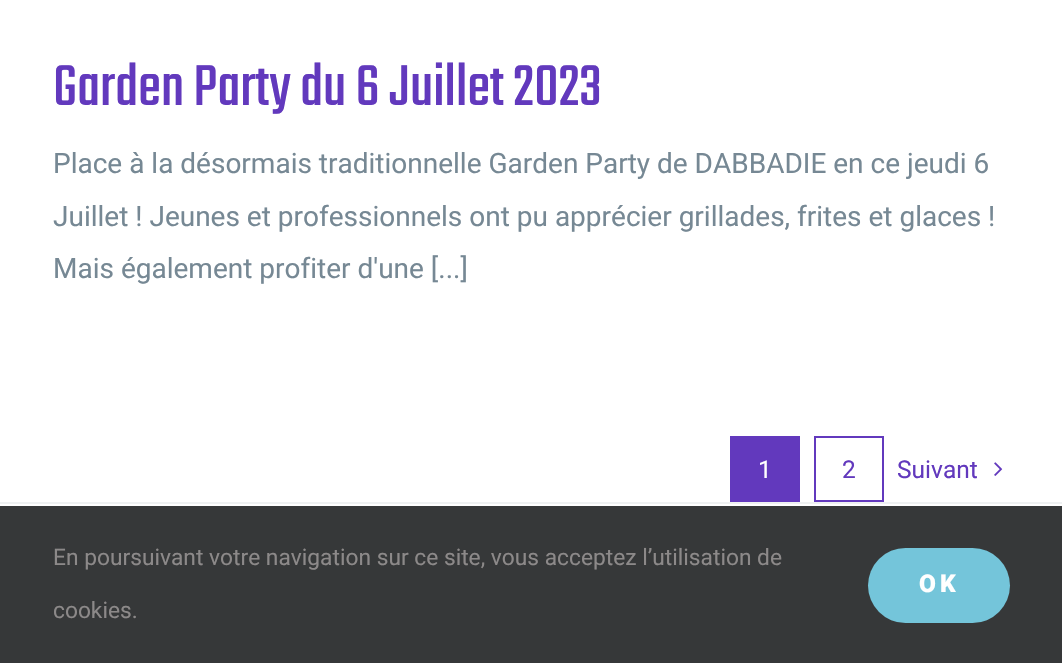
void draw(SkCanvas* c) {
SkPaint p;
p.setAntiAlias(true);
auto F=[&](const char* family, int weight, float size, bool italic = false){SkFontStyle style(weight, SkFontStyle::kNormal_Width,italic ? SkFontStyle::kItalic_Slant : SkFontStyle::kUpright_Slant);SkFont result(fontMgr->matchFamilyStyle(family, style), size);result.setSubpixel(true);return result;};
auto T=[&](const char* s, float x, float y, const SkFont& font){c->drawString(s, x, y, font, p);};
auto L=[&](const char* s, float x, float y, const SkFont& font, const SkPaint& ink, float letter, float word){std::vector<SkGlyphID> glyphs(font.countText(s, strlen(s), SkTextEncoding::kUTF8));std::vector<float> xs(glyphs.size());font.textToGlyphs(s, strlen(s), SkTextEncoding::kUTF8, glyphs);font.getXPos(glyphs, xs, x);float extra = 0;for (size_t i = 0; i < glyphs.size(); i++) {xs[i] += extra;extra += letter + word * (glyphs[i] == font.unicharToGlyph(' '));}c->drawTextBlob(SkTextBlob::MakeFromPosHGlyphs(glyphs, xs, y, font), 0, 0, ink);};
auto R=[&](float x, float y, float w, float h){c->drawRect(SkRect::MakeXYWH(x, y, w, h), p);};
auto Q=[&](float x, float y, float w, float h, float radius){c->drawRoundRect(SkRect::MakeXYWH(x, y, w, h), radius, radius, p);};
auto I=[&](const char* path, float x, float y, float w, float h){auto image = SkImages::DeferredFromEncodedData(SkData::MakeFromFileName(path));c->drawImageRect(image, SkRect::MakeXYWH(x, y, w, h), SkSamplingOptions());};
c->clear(0xffffffff);
auto f1 = F("Teko",400,63.5);
p.setColor(0xff6239bd);
T("Garden Party du 6 Juillet 2023",53,105,f1);
auto f2 = F("Roboto",400,28);
p.setColor(0xff768894);
T("Place à la désormais traditionnelle Garden Party de DABBADIE en ce jeudi 6",53,173,f2);
T("Juillet ! Jeunes et professionnels ont pu apprécier grillades, frites et glaces !",53,226,f2);
T("Mais également profiter d'une [...]",53,278,f2);
p.setColor(0xff6239bd);
R(730,436,70,66);
auto f3 = F("Roboto",400,24.5);
p.setColor(0xffffffff);
T("1",758,478,f3);
p.setStroke(true);
p.setStrokeWidth(2);
p.setColor(0xff6239bd);
c->drawRect(SkRect::MakeXYWH(815,437,68,64),p);
p.setStroke(false);
T("2",842,478,f3);
T("Suivant",897,478,f3);
I("1.png",994,462,9,14);
p.setColor(0xffeff1f2);
R(0,502,1062,2);
p.setColor(0xff363839);
R(0,506,1062,157);
auto f4 = F("Roboto",400,22.75);
p.setColor(0xff8c8989);
T("En poursuivant votre navigation sur ce site, vous acceptez l’utilisation de",53,565,f4);
T("cookies.",53,618,f4);
p.setColor(0xff74c5da);
Q(868,548,142,75,37.5);
auto f5 = F("Roboto",900,24.5);
p.setColor(0xffffffff);
L("OK",919,592,f5,p,4,0);
}
